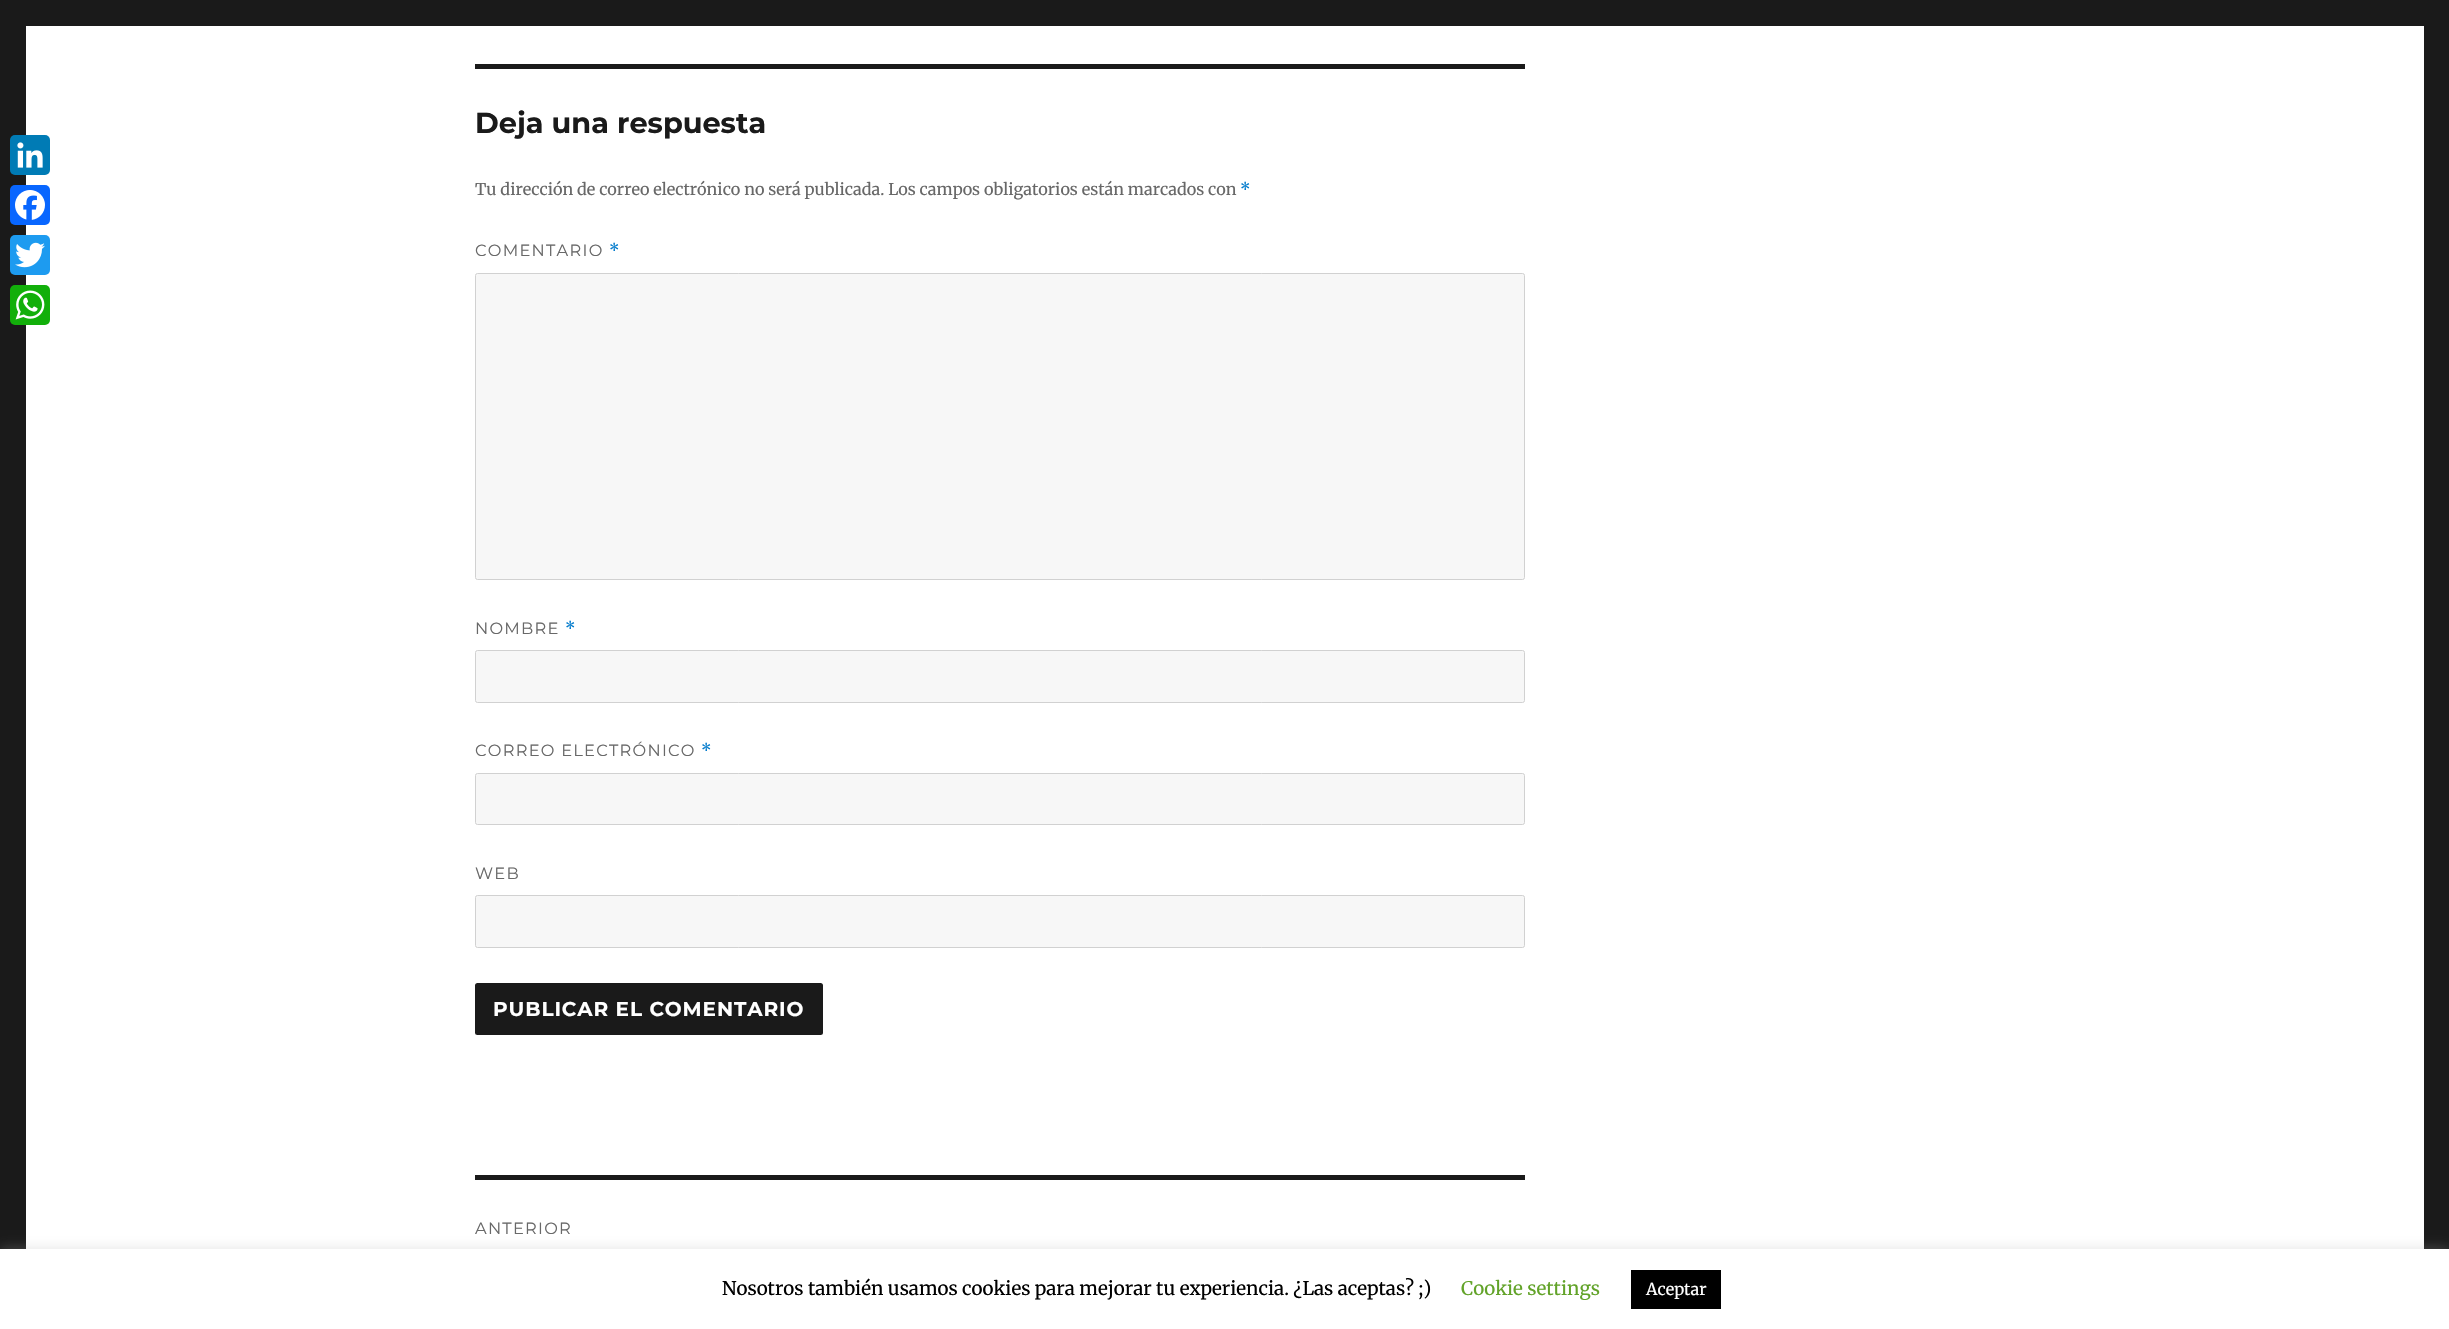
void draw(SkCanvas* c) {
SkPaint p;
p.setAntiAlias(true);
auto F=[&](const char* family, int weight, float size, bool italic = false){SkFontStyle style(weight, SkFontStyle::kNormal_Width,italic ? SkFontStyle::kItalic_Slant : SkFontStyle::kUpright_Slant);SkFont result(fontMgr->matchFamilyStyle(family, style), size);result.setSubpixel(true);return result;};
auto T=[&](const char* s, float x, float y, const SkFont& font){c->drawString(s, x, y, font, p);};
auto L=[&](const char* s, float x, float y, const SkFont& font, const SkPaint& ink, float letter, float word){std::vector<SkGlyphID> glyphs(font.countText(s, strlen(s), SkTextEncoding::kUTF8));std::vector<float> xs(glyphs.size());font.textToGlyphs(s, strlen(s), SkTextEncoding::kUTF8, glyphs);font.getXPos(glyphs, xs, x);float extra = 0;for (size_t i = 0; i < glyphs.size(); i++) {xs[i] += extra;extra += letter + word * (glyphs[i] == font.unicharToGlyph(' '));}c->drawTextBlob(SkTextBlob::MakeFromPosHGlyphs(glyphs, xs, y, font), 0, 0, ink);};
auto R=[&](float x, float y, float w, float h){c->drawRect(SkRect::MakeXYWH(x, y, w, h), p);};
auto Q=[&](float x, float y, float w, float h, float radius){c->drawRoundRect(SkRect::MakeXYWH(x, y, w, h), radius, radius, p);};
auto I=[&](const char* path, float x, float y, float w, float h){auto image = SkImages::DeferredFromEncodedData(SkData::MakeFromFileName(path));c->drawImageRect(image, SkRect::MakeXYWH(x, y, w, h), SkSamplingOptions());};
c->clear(0xff1a1a1a);
p.setColor(0xffffffff);
R(26,26,2398,1223);
p.setColor(0xff007bb5);
Q(10,135,40,40,5);
I("1.png",17,142,26,26);
p.setColor(0xff0866ff);
Q(10,185,40,40,5);
I("2.png",15,190,30,30);
p.setColor(0xff1d9bf0);
Q(10,235,40,40,5);
I("3.png",15,242,30,26);
p.setColor(0xff12af0a);
Q(10,285,40,40,5);
I("4.png",15,290,30,30);
p.setColor(0xff1a1a1a);
R(475,64,1050,5);
auto f1 = F("Montserrat",700,28.75);
T("Deja una respuesta",475,133,f1);
auto f2 = F("Merriweather",400,16.25);
p.setColor(0xff686868);
T("Tu dirección de correo electrónico no será publicada. Los campos obligatorios están marcados con",475,195,f2);
p.setColor(0xff007acc);
T("*",1240,195,f2);
auto f3 = F("Montserrat",400,16.25);
p.setColor(0xff686868);
L("COMENTARIO",475,256,f3,p,1.25,0);
p.setColor(0xff007acc);
L("*",609,256,f2,p,1.25,0);
p.setColor(0xfff7f7f7);
c->drawRoundRect(SkRect::MakeXYWH(475.5,273.5,1049,306),2,2,p);
p.setStroke(true);
p.setStrokeWidth(1);
p.setColor(0xffd1d1d1);
c->drawRoundRect(SkRect::MakeXYWH(475.5,273.5,1049,306),2,2,p);
p.setStroke(false);
p.setColor(0xff686868);
L("NOMBRE",475,634,f3,p,1.25,0);
p.setColor(0xff007acc);
L("*",565,634,f2,p,1.25,0);
p.setColor(0xfff7f7f7);
c->drawRoundRect(SkRect::MakeXYWH(475.5,650.5,1049,52),2,2,p);
p.setStroke(true);
p.setColor(0xffd1d1d1);
c->drawRoundRect(SkRect::MakeXYWH(475.5,650.5,1049,52),2,2,p);
p.setStroke(false);
p.setColor(0xff686868);
L("CORREO ELECTRÓNICO",475,756,f3,p,1.25,0);
p.setColor(0xff007acc);
L("*",701,756,f2,p,1.25,0);
p.setColor(0xfff7f7f7);
c->drawRoundRect(SkRect::MakeXYWH(475.5,773.5,1049,51),2,2,p);
p.setStroke(true);
p.setColor(0xffd1d1d1);
c->drawRoundRect(SkRect::MakeXYWH(475.5,773.5,1049,51),2,2,p);
p.setStroke(false);
p.setColor(0xff686868);
L("WEB",475,879,f3,p,1.25,0);
p.setColor(0xfff7f7f7);
c->drawRoundRect(SkRect::MakeXYWH(475.5,895.5,1049,52),2,2,p);
p.setStroke(true);
p.setColor(0xffd1d1d1);
c->drawRoundRect(SkRect::MakeXYWH(475.5,895.5,1049,52),2,2,p);
p.setStroke(false);
p.setColor(0xff1a1a1a);
Q(475,983,348,52,2.5);
auto f4 = F("Montserrat",700,20);
p.setColor(0xffffffff);
L("PUBLICAR EL COMENTARIO",493,1016,f4,p,.9,0);
p.setColor(0xff1a1a1a);
R(475,1175,1050,5);
p.setColor(0xff686868);
L("ANTERIOR",475,1234,f3,p,1.25,0);
p.setColor(0x4dacabab);
p.setMaskFilter(SkMaskFilter::MakeBlur(kNormal_SkBlurStyle, 6));
c->drawRect(SkRect::MakeXYWH(0,1248,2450,81),p);
p.setMaskFilter(nullptr);
p.setColor(0xffffffff);
R(0,1249,2449,80);
auto f5 = F("Merriweather",400,18.75);
p.setColor(0xff000000);
T("Nosotros también usamos cookies para mejorar tu experiencia. ¿Las aceptas? ;)",722,1295,f5);
p.setColor(0xff62a329);
T("Cookie settings",1461,1295,f5);
p.setColor(0xff000000);
R(1631,1270,90,39);
p.setColor(0xffffffff);
T("Aceptar",1646,1295,f2);
}
